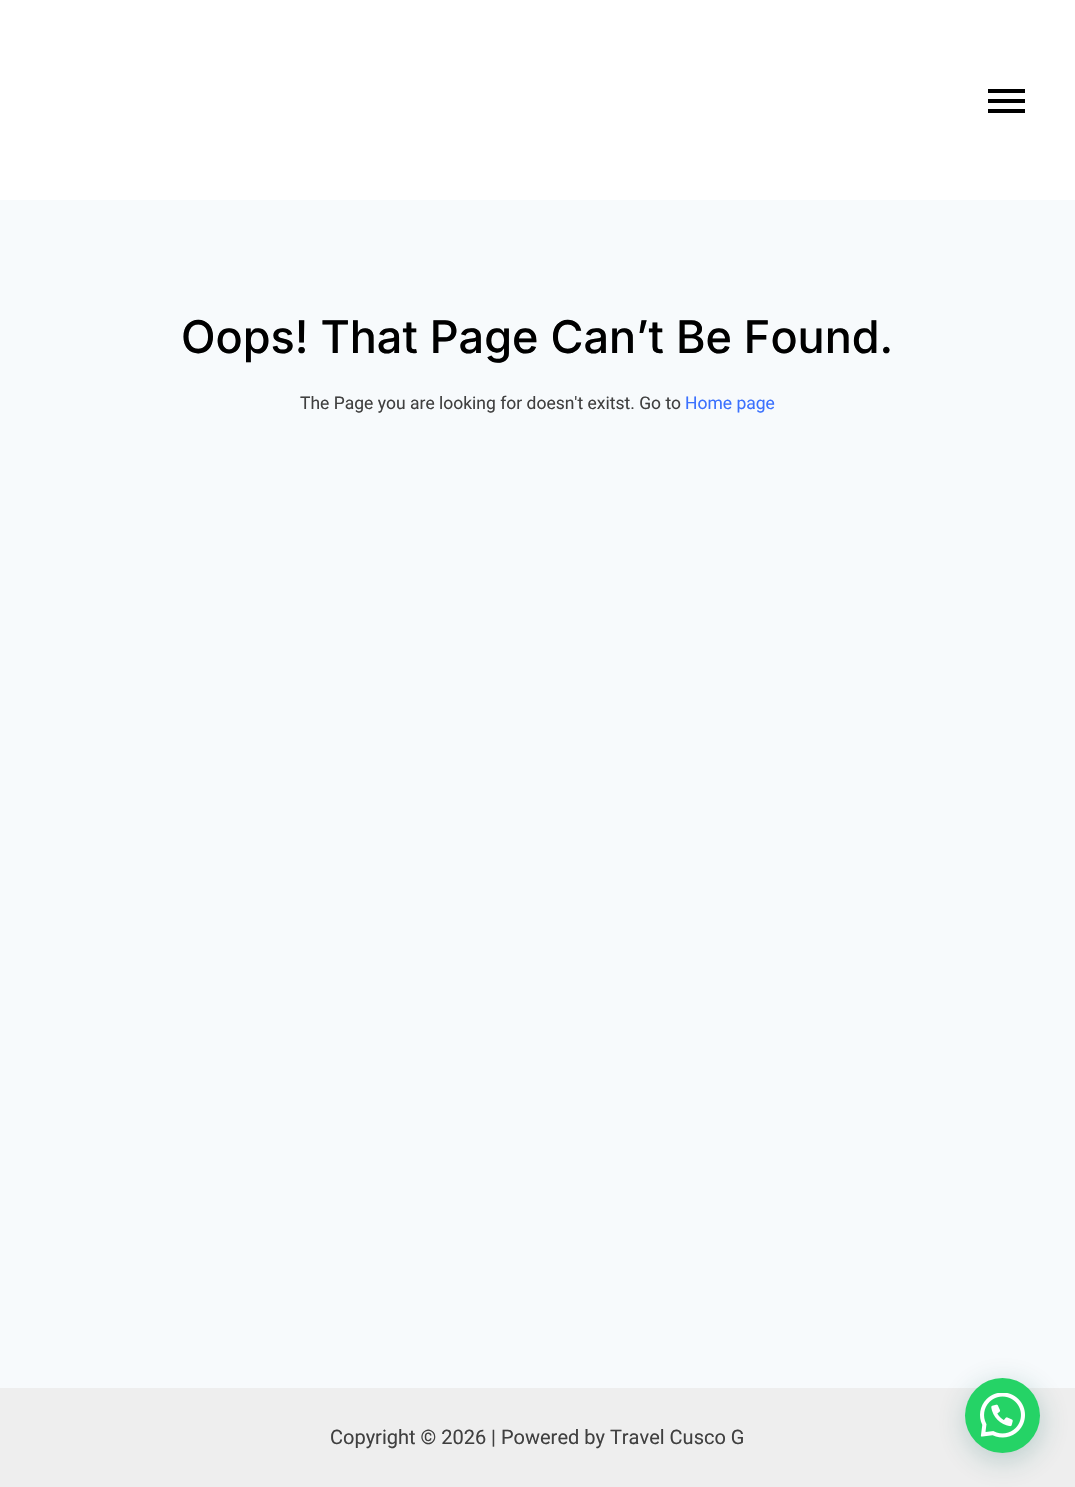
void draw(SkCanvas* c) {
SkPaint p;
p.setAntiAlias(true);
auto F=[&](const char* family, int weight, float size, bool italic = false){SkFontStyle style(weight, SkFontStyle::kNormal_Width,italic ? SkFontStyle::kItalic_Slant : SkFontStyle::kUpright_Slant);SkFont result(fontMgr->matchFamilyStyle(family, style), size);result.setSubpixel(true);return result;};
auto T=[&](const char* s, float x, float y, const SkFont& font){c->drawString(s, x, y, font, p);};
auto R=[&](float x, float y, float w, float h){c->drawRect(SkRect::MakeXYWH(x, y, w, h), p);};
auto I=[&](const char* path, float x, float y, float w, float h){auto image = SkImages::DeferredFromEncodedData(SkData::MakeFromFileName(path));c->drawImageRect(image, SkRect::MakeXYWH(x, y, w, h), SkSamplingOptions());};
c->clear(0xfff7fafc);
p.setColor(0xffffffff);
R(0,0,1075,200);
p.setColor(0xff000000);
R(988,89,37,4);
R(988,99,37,4);
R(988,109,37,4);
auto f1 = F("Inter",500,45);
T("Oops! That Page Can’t Be Found.",181,353,f1);
auto f2 = F("Roboto",400,17.5);
p.setColor(0xff404040);
T("The Page you are looking for doesn't exitst. Go to",300,409,f2);
p.setColor(0xff3b71fe);
T("Home page",685,409,f2);
p.setColor(0xffeeeeee);
R(0,1388,1075,99);
auto f3 = F("Roboto",400,20);
p.setColor(0xff404040);
T("Copyright © 2026 | Powered by Travel Cusco G",330,1444,f3);
p.setColor(0x3d075e54);
p.setMaskFilter(SkMaskFilter::MakeBlur(kNormal_SkBlurStyle, 15));
c->drawRoundRect(SkRect::MakeXYWH(966,1385,75,75),37.5,37.5,p);
p.setMaskFilter(nullptr);
p.setColor(0xff25d366);
c->drawCircle(1002.5,1415.5,37.5,p);
I("1.png",980,1393,45,45);
}
